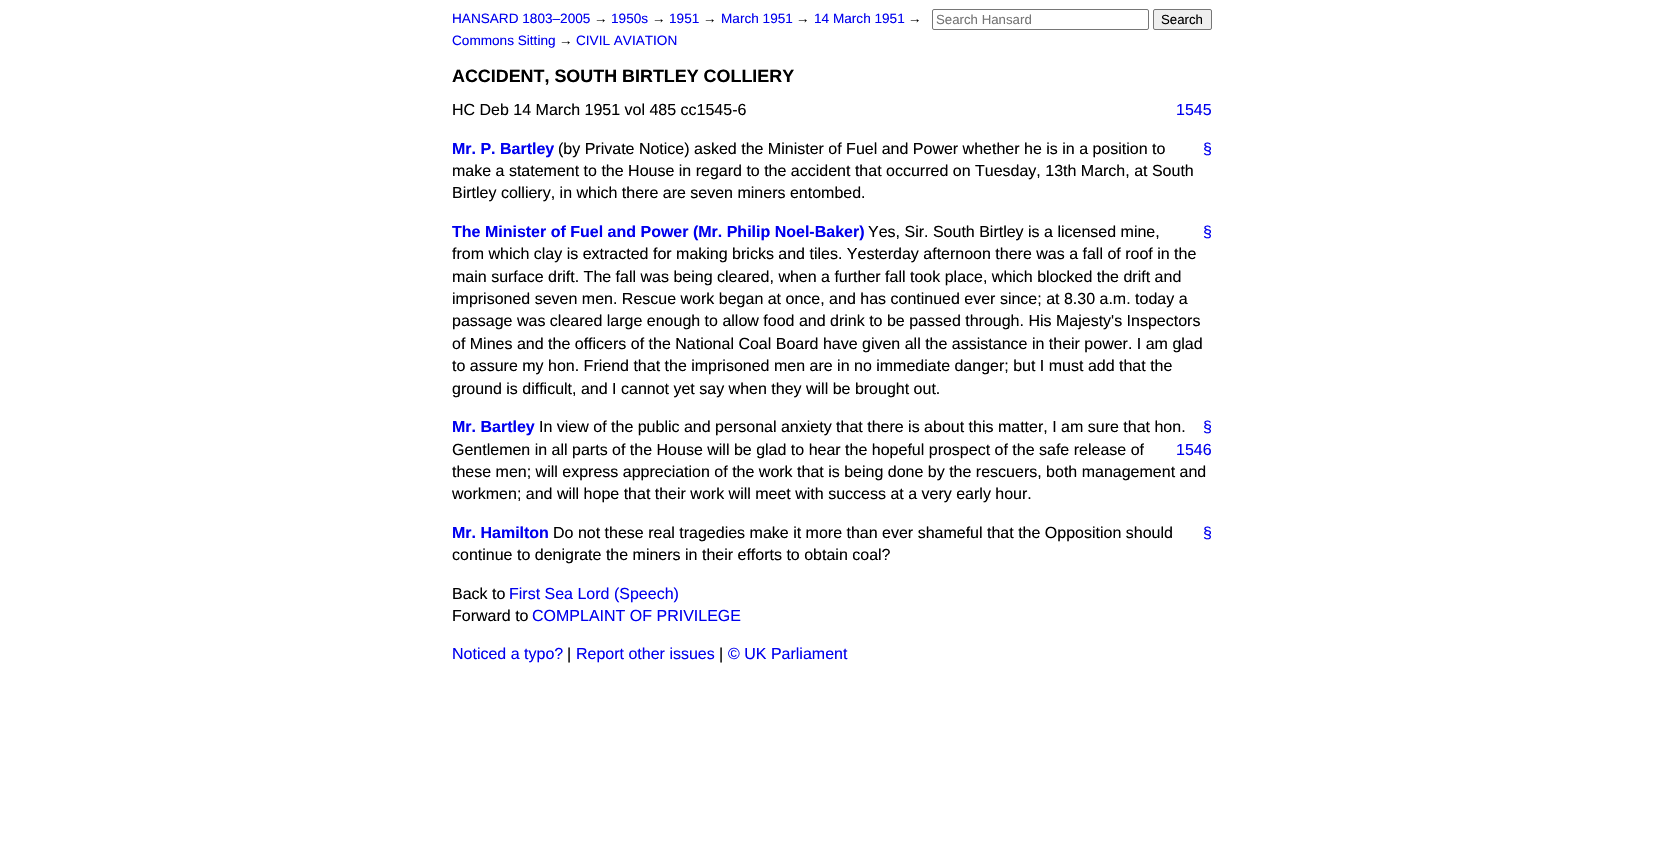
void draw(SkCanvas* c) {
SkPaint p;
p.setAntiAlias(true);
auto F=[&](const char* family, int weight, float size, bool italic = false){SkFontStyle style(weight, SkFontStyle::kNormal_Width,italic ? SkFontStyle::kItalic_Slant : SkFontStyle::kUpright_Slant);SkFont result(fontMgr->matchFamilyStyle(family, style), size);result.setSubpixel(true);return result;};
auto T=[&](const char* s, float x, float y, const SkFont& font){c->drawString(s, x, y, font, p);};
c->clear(0xffffffff);
auto f1 = F("Liberation Sans",400,13.6);
p.setColor(0xff0000ee);
T("HANSARD 1803–2005",452,23,f1);
p.setColor(0xff000000);
T("→",594,23,f1);
p.setColor(0xff0000ee);
T("1950s",611,23,f1);
p.setColor(0xff000000);
T("→",652,23,f1);
p.setColor(0xff0000ee);
T("1951",669,23,f1);
p.setColor(0xff000000);
T("→",703,23,f1);
p.setColor(0xff0000ee);
T("March 1951",721,23,f1);
p.setColor(0xff000000);
T("→",796,23,f1);
p.setColor(0xff0000ee);
T("14 March 1951",814,23,f1);
p.setColor(0xff000000);
T("→",908,23,f1);
p.setColor(0xff0000ee);
T("Commons Sitting",452,45,f1);
p.setColor(0xff000000);
T("→",559,45,f1);
p.setColor(0xff0000ee);
T("CIVIL AVIATION",576,45,f1);
p.setStroke(true);
p.setStrokeWidth(1);
p.setColor(0xff767676);
c->drawRoundRect(SkRect::MakeXYWH(932.5,9.5,216,20),1.5,1.5,p);
auto f2 = F("Liberation Sans",400,13.25);
p.setStroke(false);
p.setColor(0xff757575);
T("Search Hansard",936,24,f2);
p.setColor(0xffefefef);
c->drawRoundRect(SkRect::MakeXYWH(1153.5,9.5,58,20),1.5,1.5,p);
p.setStroke(true);
p.setColor(0xff767676);
c->drawRoundRect(SkRect::MakeXYWH(1153.5,9.5,58,20),1.5,1.5,p);
p.setStroke(false);
p.setColor(0xff000000);
T("Search",1161,24,f2);
auto f3 = F("Liberation Sans",700,17.9);
T("ACCIDENT, SOUTH BIRTLEY COLLIERY",452,82,f3);
auto f4 = F("Liberation Sans",400,16);
T("HC Deb 14 March 1951 vol 485 cc1545-6",452,115,f4);
p.setColor(0xff0000ee);
T("1545",1176,115,f4);
auto f5 = F("Liberation Sans",700,16);
T("Mr. P. Bartley",452,154,f5);
p.setColor(0xff000000);
T("(by Private Notice) asked the Minister of Fuel and Power whether he is in a position to",558,154,f4);
p.setColor(0xff0000ee);
T("§",1203,154,f4);
p.setColor(0xff000000);
T("make a statement to the House in regard to the accident that occurred on Tuesday, 13th March, at South",452,176,f4);
T("Birtley colliery, in which there are seven miners entombed.",452,198,f4);
p.setColor(0xff0000ee);
T("The Minister of Fuel and Power (Mr. Philip Noel-Baker)",452,237,f5);
p.setColor(0xff000000);
T("Yes, Sir. South Birtley is a licensed mine,",868,237,f4);
p.setColor(0xff0000ee);
T("§",1203,237,f4);
p.setColor(0xff000000);
T("from which clay is extracted for making bricks and tiles. Yesterday afternoon there was a fall of roof in the",452,259,f4);
T("main surface drift. The fall was being cleared, when a further fall took place, which blocked the drift and",452,282,f4);
T("imprisoned seven men. Rescue work began at once, and has continued ever since; at 8.30 a.m. today a",452,304,f4);
T("passage was cleared large enough to allow food and drink to be passed through. His Majesty's Inspectors",452,326,f4);
T("of Mines and the officers of the National Coal Board have given all the assistance in their power. I am glad",452,349,f4);
T("to assure my hon. Friend that the imprisoned men are in no immediate danger; but I must add that the",452,371,f4);
T("ground is difficult, and I cannot yet say when they will be brought out.",452,394,f4);
T("In view of the public and personal anxiety that there is about this matter, I am sure that hon.",539,432,f4);
T("Gentlemen in all parts of the House will be glad to hear the hopeful prospect of the safe release of",452,455,f4);
p.setColor(0xff0000ee);
T("1546",1176,455,f4);
p.setColor(0xff000000);
T("these men; will express appreciation of the work that is being done by the rescuers, both management and",452,477,f4);
T("workmen; and will hope that their work will meet with success at a very early hour.",452,499,f4);
p.setColor(0xff0000ee);
T("Mr. Bartley",452,432,f5);
T("§",1203,432,f4);
T("Mr. Hamilton",452,538,f5);
p.setColor(0xff000000);
T("Do not these real tragedies make it more than ever shameful that the Opposition should",553,538,f4);
p.setColor(0xff0000ee);
T("§",1203,538,f4);
p.setColor(0xff000000);
T("continue to denigrate the miners in their efforts to obtain coal?",452,560,f4);
T("Back to",452,599,f4);
p.setColor(0xff0000ee);
T("First Sea Lord (Speech)",509,599,f4);
p.setColor(0xff000000);
T("Forward to",452,621,f4);
p.setColor(0xff0000ee);
T("COMPLAINT OF PRIVILEGE",532,621,f4);
T("Noticed a typo?",452,659,f4);
p.setColor(0xff000000);
T("|",567,659,f4);
p.setColor(0xff0000ee);
T("Report other issues",576,659,f4);
p.setColor(0xff000000);
T("|",719,659,f4);
p.setColor(0xff0000ee);
T("© UK Parliament",728,659,f4);
}
